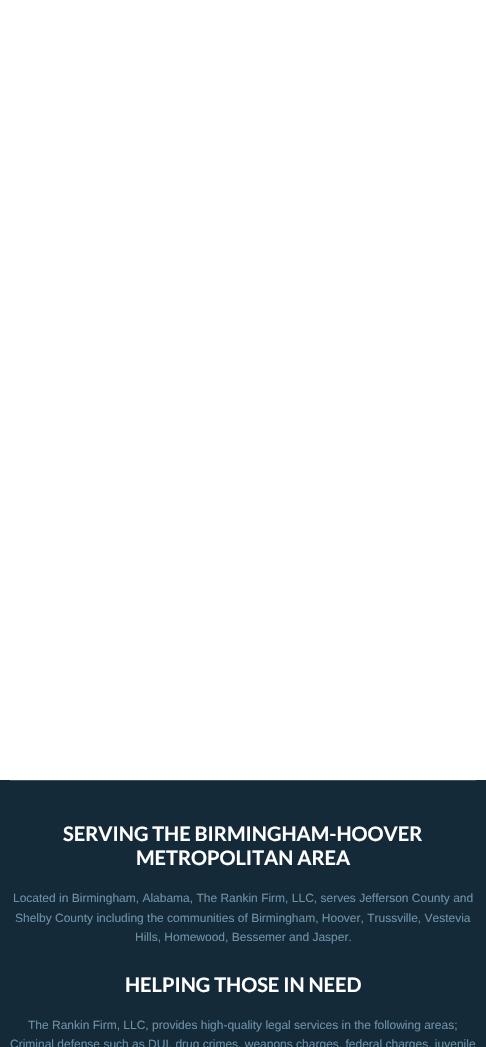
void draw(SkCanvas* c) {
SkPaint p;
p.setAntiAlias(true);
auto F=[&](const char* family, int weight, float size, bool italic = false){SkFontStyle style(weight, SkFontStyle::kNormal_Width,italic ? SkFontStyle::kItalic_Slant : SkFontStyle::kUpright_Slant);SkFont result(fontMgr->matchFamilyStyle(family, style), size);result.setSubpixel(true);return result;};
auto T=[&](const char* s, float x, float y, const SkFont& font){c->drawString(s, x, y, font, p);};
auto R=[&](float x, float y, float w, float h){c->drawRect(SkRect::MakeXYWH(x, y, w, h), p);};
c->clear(0xff152a39);
p.setColor(0xffffffff);
R(0,0,486,780);
p.setColor(0xff445561);
R(10,780,466,1);
auto f1 = F("Lato",700,20);
p.setColor(0xffffffff);
T("SERVING THE BIRMINGHAM-HOOVER",63,841,f1);
T("METROPOLITAN AREA",136,865,f1);
auto f2 = F("Liberation Sans",400,12);
p.setColor(0xff6d90a7);
T("Located in Birmingham, Alabama, The Rankin Firm, LLC, serves Jefferson County and",13,902,f2);
T("Shelby County including the communities of Birmingham, Hoover, Trussville, Vestevia",15,922,f2);
T("Hills, Homewood, Bessemer and Jasper.",135,941,f2);
p.setColor(0xffffffff);
T("HELPING THOSE IN NEED",125,992,f1);
p.setColor(0xff6d90a7);
T("The Rankin Firm, LLC, provides high-quality legal services in the following areas;",28,1029,f2);
T("Criminal defense such as DUI, drug crimes, weapons charges, federal charges, juvenile",10,1048,f2);
}
